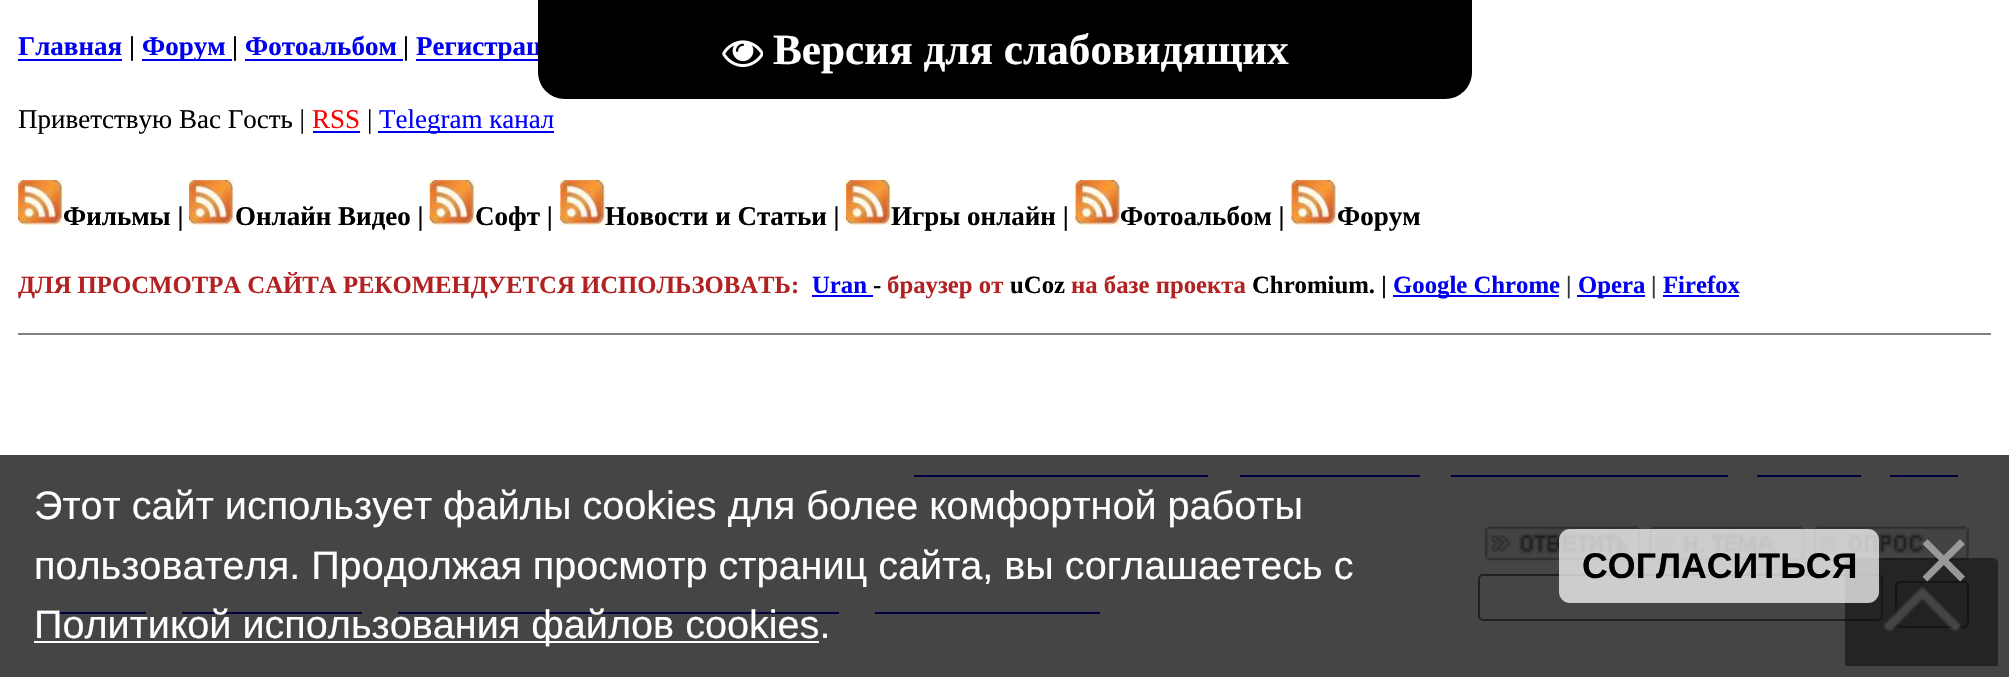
void draw(SkCanvas* c) {
SkPaint p;
p.setAntiAlias(true);
auto F=[&](const char* family, int weight, float size, bool italic = false){SkFontStyle style(weight, SkFontStyle::kNormal_Width,italic ? SkFontStyle::kItalic_Slant : SkFontStyle::kUpright_Slant);SkFont result(fontMgr->matchFamilyStyle(family, style), size);result.setSubpixel(true);return result;};
auto T=[&](const char* s, float x, float y, const SkFont& font){c->drawString(s, x, y, font, p);};
auto R=[&](float x, float y, float w, float h){c->drawRect(SkRect::MakeXYWH(x, y, w, h), p);};
auto Q=[&](float x, float y, float w, float h, float radius){c->drawRoundRect(SkRect::MakeXYWH(x, y, w, h), radius, radius, p);};
auto I=[&](const char* path, float x, float y, float w, float h){auto image = SkImages::DeferredFromEncodedData(SkData::MakeFromFileName(path));c->drawImageRect(image, SkRect::MakeXYWH(x, y, w, h), SkSamplingOptions());};
auto P=[&](const char* data, bool evenOdd = false){SkPath result = *SkParsePath::FromSVGString(data);if (evenOdd) result.setFillType(SkPathFillType::kEvenOdd);return result;};
c->clear(0xffffffff);
p.setColor(0xff0000ee);
R(416,59,122,2);
auto f1 = F("Liberation Serif",700,27);
T("Регистрац",416,55,f1);
p.setColor(0xff000000);
c->drawPath(P("M538 0h934v72c0 15-12 27-27 27h-880c-15 0-27-12-27-27z"),p);
I("1.png",722,40,41,27);
auto f2 = F("Liberation Serif",700,43.25);
p.setColor(0xffffffff);
T("Версия для слабовидящих",773,64,f2);
p.setColor(0xff0000ee);
T("Главная",18,55,f1);
R(18,59,104,2);
p.setColor(0xff000000);
T("|",129,55,f1);
p.setColor(0xff0000ee);
R(142,59,90,2);
T("Форум",142,55,f1);
p.setColor(0xff000000);
T("|",232,55,f1);
p.setColor(0xff0000ee);
T("Фотоальбом",245,55,f1);
p.setColor(0xff000000);
T("|",403,55,f1);
p.setColor(0xff0000ee);
R(245,59,158,2);
auto f3 = F("Liberation Serif",400,27);
p.setColor(0xff000000);
T("Приветствую Вас Гость |",18,128,f3);
p.setColor(0xffff0000);
T("RSS",312,128,f3);
p.setColor(0xff0000ee);
R(313,131,47,2);
p.setColor(0xff000000);
T("|",367,128,f3);
p.setColor(0xff0000ee);
R(378,131,176,2);
p.setColor(0xff0000ff);
T("Telegram канал",379,128,f3);
I("2.png",18,180,45,45);
p.setColor(0xff000000);
T("Фильмы |",63,225,f1);
I("2.png",189,180,45,45);
T("Онлайн Видео |",235,225,f1);
I("3.png",429,180,46,45);
T("Софт |",475,225,f1);
I("4.png",560,180,46,45);
T("Новости и Статьи |",605,225,f1);
I("2.png",846,180,45,45);
T("Игры онлайн |",891,225,f1);
I("5.png",1075,180,46,45);
T("Фотоальбом |",1120,225,f1);
I("5.png",1291,180,46,45);
T("Форум",1337,225,f1);
auto f4 = F("Liberation Serif",700,24.75);
p.setColor(0xffb22222);
T("ДЛЯ ПРОСМОТРА САЙТА РЕКОМЕНДУЕТСЯ ИСПОЛЬЗОВАТЬ:",18,293,f4);
p.setColor(0xff0000ee);
T("Uran",812,293,f4);
p.setColor(0xff000000);
T("-",873,293,f4);
p.setColor(0xff0000ee);
R(812,295,61,2);
p.setColor(0xffb22222);
T("браузер от",887,293,f4);
p.setColor(0xff000000);
T("uCoz",1010,293,f4);
p.setColor(0xffb22222);
T("на базе проекта",1071,293,f4);
p.setColor(0xff000000);
T("Chromium. |",1252,293,f4);
p.setColor(0xff0000ee);
R(1393,295,166,2);
T("Google Chrome",1393,293,f4);
p.setColor(0xff303942);
T("|",1566,293,f4);
p.setColor(0xff0000ee);
R(1577,295,68,2);
T("Opera",1578,293,f4);
p.setColor(0xff303942);
T("|",1651,293,f4);
p.setColor(0xff0000ee);
T("Firefox",1663,293,f4);
R(1663,295,76,2);
p.setColor(0xff808080);
R(18,333,1973,2);
p.setColor(0xff0000ee);
R(914,475,294,2);
R(1240,475,180,2);
R(1451,475,277,2);
R(1757,475,104,2);
R(1890,475,68,2);
I("6.png",1485,526,156,35);
I("7.png",1649,526,156,35);
I("8.png",1813,526,156,35);
R(41,612,105,2);
R(182,612,180,2);
R(398,612,441,2);
R(875,612,225,2);
p.setStroke(true);
p.setStrokeWidth(2);
p.setColor(0xff767676);
c->drawRoundRect(SkRect::MakeXYWH(1479,575,403,45),4,4,p);
p.setStroke(false);
p.setColor(0xffefefef);
c->drawRoundRect(SkRect::MakeXYWH(1896,582,72,45),4,4,p);
p.setStroke(true);
p.setColor(0xff767676);
c->drawRoundRect(SkRect::MakeXYWH(1896,582,72,45),4,4,p);
I("9.png",1845,558,153,108);
p.setStroke(false);
p.setColor(0xba000000);
R(0,455,2009,222);
auto f5 = F("Liberation Sans",400,39.6);
p.setColor(0xffffffff);
T("Этот сайт использует файлы cookies для более комфортной работы",34,519,f5);
T("пользователя. Продолжая просмотр страниц сайта, вы соглашаетесь с",34,579,f5);
R(34,641,785,2);
T("Политикой использования файлов cookies.",34,638,f5);
p.setColor(0xbaffffff);
Q(1559,529,320,74,11);
auto f6 = F("Liberation Sans",700,35.75);
p.setColor(0xff000000);
T("СОГЛАСИТЬСЯ",1582,578,f6);
auto f7 = F("Liberation Sans",400,95);
p.setColor(0xff999999);
T("×",1916,592,f7);
}
